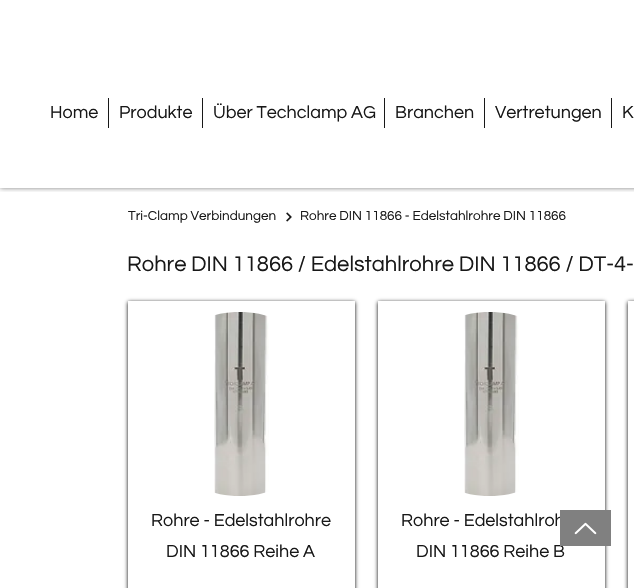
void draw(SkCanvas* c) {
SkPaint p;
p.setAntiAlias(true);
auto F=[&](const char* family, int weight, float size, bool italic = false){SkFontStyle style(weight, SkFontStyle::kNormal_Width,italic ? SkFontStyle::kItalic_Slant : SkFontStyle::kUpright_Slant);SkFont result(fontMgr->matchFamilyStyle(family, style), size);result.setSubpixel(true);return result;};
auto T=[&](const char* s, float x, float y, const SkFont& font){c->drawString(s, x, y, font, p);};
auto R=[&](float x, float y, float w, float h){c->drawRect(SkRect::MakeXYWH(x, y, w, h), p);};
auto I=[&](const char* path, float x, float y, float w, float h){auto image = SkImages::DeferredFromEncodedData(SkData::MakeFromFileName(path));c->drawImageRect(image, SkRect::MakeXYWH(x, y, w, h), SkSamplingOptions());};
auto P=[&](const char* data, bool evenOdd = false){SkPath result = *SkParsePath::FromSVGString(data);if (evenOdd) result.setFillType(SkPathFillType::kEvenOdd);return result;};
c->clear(0xffffffff);
c->save();
c->clipRect(SkRect::MakeXYWH(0,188,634,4));
p.setColor(0x80000000);
p.setMaskFilter(SkMaskFilter::MakeBlur(kNormal_SkBlurStyle, 2.5));
c->drawRect(SkRect::MakeXYWH(0,0,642,188),p);
p.setMaskFilter(nullptr);
c->restore();
auto f1 = F("Questrial",400,18);
p.setColor(0xff181818);
T("Home",50,118,f1);
R(108,98,1,30);
T("Produkte",119,118,f1);
R(202,98,1,30);
T("Über Techclamp AG",213,118,f1);
R(384,98,1,30);
T("Branchen",395,118,f1);
R(484,98,1,30);
T("Vertretungen",495,118,f1);
R(611,98,1,30);
T("K",622,118,f1);
auto f2 = F("Questrial",400,13.5);
T("Tri-Clamp Verbindungen",128,220,f2);
I("1.png",286,212,6,10);
T("Rohre DIN 11866 - Edelstahlrohre DIN 11866",300,220,f2);
auto f3 = F("Questrial",400,22);
T("Rohre DIN 11866 / Edelstahlrohre DIN 11866 / DT-4-",127,271,f3);
c->save();
c->clipPath(P("M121 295h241v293h-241zm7 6h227v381h-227z",true),true);
p.setColor(0xff000000);
p.setMaskFilter(SkMaskFilter::MakeBlur(kNormal_SkBlurStyle, 2));
c->drawRect(SkRect::MakeXYWH(128,302,227,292),p);
p.setMaskFilter(nullptr);
c->restore();
I("2.png",214,312,55,184);
p.setColor(0xff181818);
T("Rohre - Edelstahlrohre",151,526,f1);
T("DIN 11866 Reihe A",166,557,f1);
c->save();
c->clipPath(P("M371 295h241v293h-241zm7 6h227v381h-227z",true),true);
p.setColor(0xff000000);
p.setMaskFilter(SkMaskFilter::MakeBlur(kNormal_SkBlurStyle, 2));
c->drawRect(SkRect::MakeXYWH(378,302,227,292),p);
p.setMaskFilter(nullptr);
c->restore();
I("2.png",464,312,55,184);
p.setColor(0xff181818);
T("Rohre - Edelstahlroh",401,526,f1);
T("DIN 11866 Reihe B",416,557,f1);
c->save();
c->clipPath(P("M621 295h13v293h-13zm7 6h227v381h-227z",true),true);
p.setColor(0xff000000);
p.setMaskFilter(SkMaskFilter::MakeBlur(kNormal_SkBlurStyle, 2));
c->drawRect(SkRect::MakeXYWH(628,302,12,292),p);
p.setMaskFilter(nullptr);
c->restore();
p.setColor(0xff808080);
R(560,510,51,36);
I("3.png",574,522,23,13);
}
